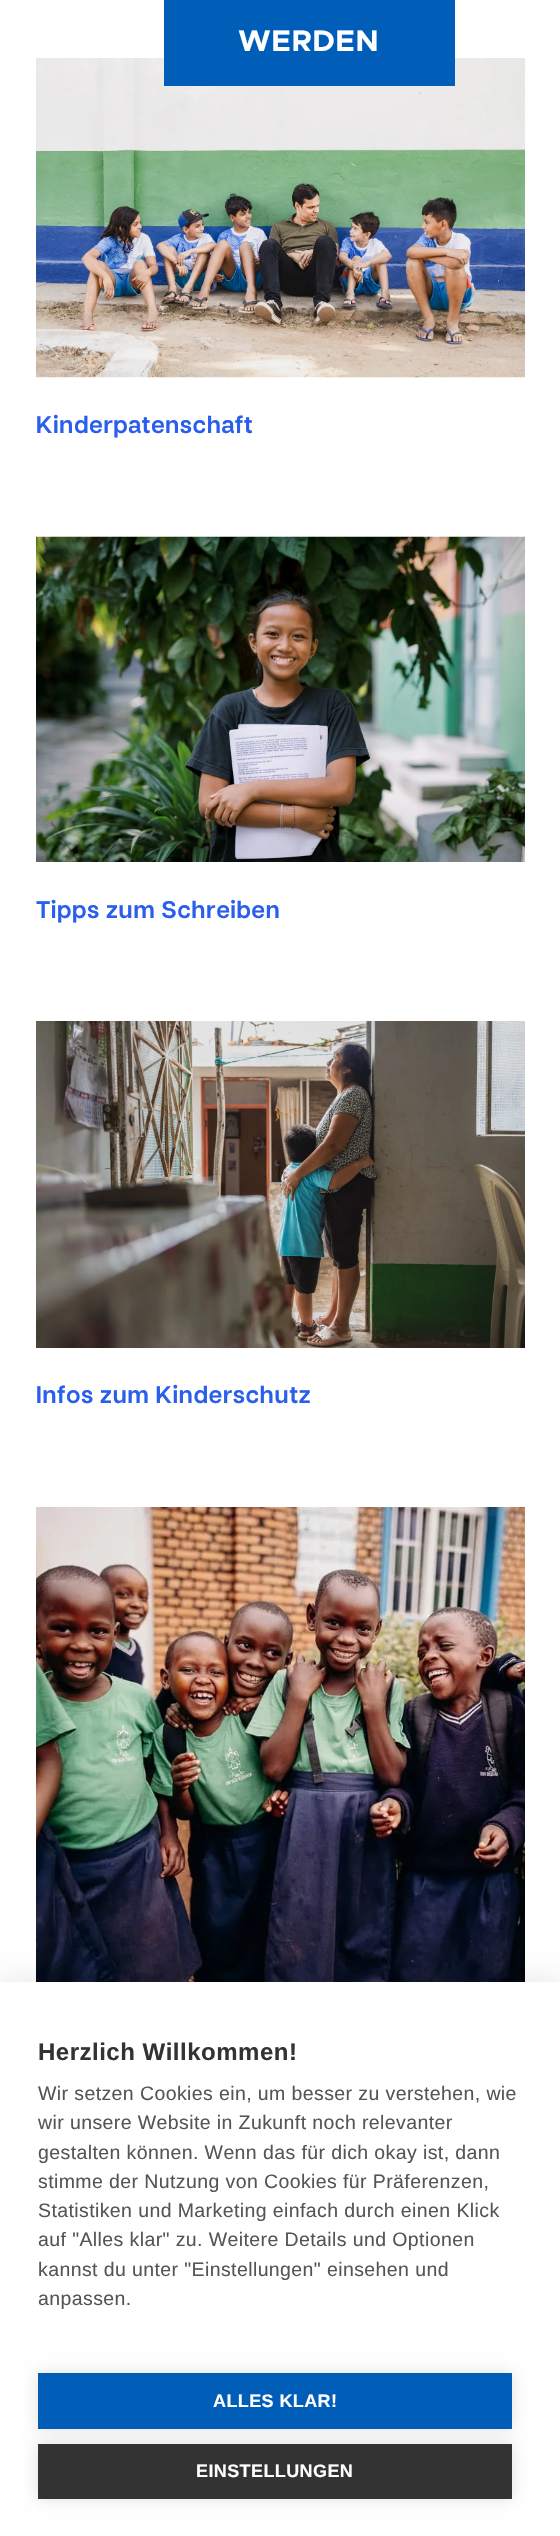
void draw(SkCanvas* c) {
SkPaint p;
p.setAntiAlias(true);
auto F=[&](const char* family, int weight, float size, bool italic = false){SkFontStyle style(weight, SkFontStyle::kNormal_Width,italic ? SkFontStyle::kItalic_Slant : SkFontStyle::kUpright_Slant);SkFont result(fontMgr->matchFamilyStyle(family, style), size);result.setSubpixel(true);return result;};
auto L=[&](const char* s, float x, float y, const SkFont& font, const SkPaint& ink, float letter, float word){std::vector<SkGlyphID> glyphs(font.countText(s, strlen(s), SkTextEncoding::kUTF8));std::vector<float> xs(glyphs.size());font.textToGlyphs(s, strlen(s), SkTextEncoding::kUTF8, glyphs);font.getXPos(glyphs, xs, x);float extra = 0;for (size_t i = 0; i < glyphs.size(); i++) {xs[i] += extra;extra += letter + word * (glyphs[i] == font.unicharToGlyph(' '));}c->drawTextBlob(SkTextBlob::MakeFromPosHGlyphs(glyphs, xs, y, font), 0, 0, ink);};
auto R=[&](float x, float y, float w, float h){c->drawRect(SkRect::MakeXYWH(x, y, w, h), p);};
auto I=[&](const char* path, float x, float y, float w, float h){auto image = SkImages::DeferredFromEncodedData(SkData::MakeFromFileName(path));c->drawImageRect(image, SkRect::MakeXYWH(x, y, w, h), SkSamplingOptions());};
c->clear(0xffffffff);
I("1.png",36,58,489,320);
p.setColor(0xff005eb8);
R(164,0,291,86);
auto f1 = F("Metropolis",700,30);
p.setColor(0xffffffff);
L("WERDEN",238,51,f1,p,.5,0);
auto f2 = F("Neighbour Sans",600,24);
p.setColor(0xff2a5eec);
L("Kinderpatenschaft",36,433,f2,p,.5,0);
I("2.png",36,536,489,326);
L("Tipps zum Schreiben",36,918,f2,p,.5,0);
I("3.png",36,1021,489,327);
L("Infos zum Kinderschutz",36,1403,f2,p,.5,0);
I("4.png",36,1507,489,475);
p.setColor(0x1a000000);
p.setMaskFilter(SkMaskFilter::MakeBlur(kNormal_SkBlurStyle, 15));
c->drawRect(SkRect::MakeXYWH(0,1982,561,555),p);
p.setMaskFilter(nullptr);
p.setColor(0xffffffff);
R(0,1982,560,554);
auto f3 = F("Liberation Sans",700,24);
p.setColor(0xff333333);
L("Herzlich Willkommen!",38,2060,f3,p,.5,0);
auto f4 = F("Liberation Sans",400,19.5);
p.setColor(0xff555555);
L("Wir setzen Cookies ein, um besser zu verstehen, wie",38,2100,f4,p,.4,0);
L("wir unsere Website in Zukunft noch relevanter",38,2129,f4,p,.4,0);
L("gestalten können. Wenn das für dich okay ist, dann",38,2159,f4,p,.4,0);
L("stimme der Nutzung von Cookies für Präferenzen,",38,2188,f4,p,.4,0);
L("Statistiken und Marketing einfach durch einen Klick",38,2217,f4,p,.4,0);
L("auf \"Alles klar\" zu. Weitere Details und Optionen",38,2246,f4,p,.4,0);
L("kannst du unter \"Einstellungen\" einsehen und",38,2276,f4,p,.4,0);
L("anpassen.",38,2305,f4,p,.4,0);
p.setColor(0x1f000000);
p.setMaskFilter(SkMaskFilter::MakeBlur(kNormal_SkBlurStyle, 7.5));
c->drawRect(SkRect::MakeXYWH(38,2373,474,56),p);
p.setMaskFilter(nullptr);
p.setColor(0xff005eb8);
R(38,2373,474,56);
auto f5 = F("Liberation Sans",700,18);
p.setColor(0xffffffff);
L("ALLES KLAR!",213,2407,f5,p,.4,0);
p.setColor(0x1f000000);
p.setMaskFilter(SkMaskFilter::MakeBlur(kNormal_SkBlurStyle, 7.5));
c->drawRect(SkRect::MakeXYWH(38,2444,474,55),p);
p.setMaskFilter(nullptr);
p.setColor(0xff333333);
R(38,2444,474,55);
p.setColor(0xffffffff);
L("EINSTELLUNGEN",196,2477,f5,p,.4,0);
}
